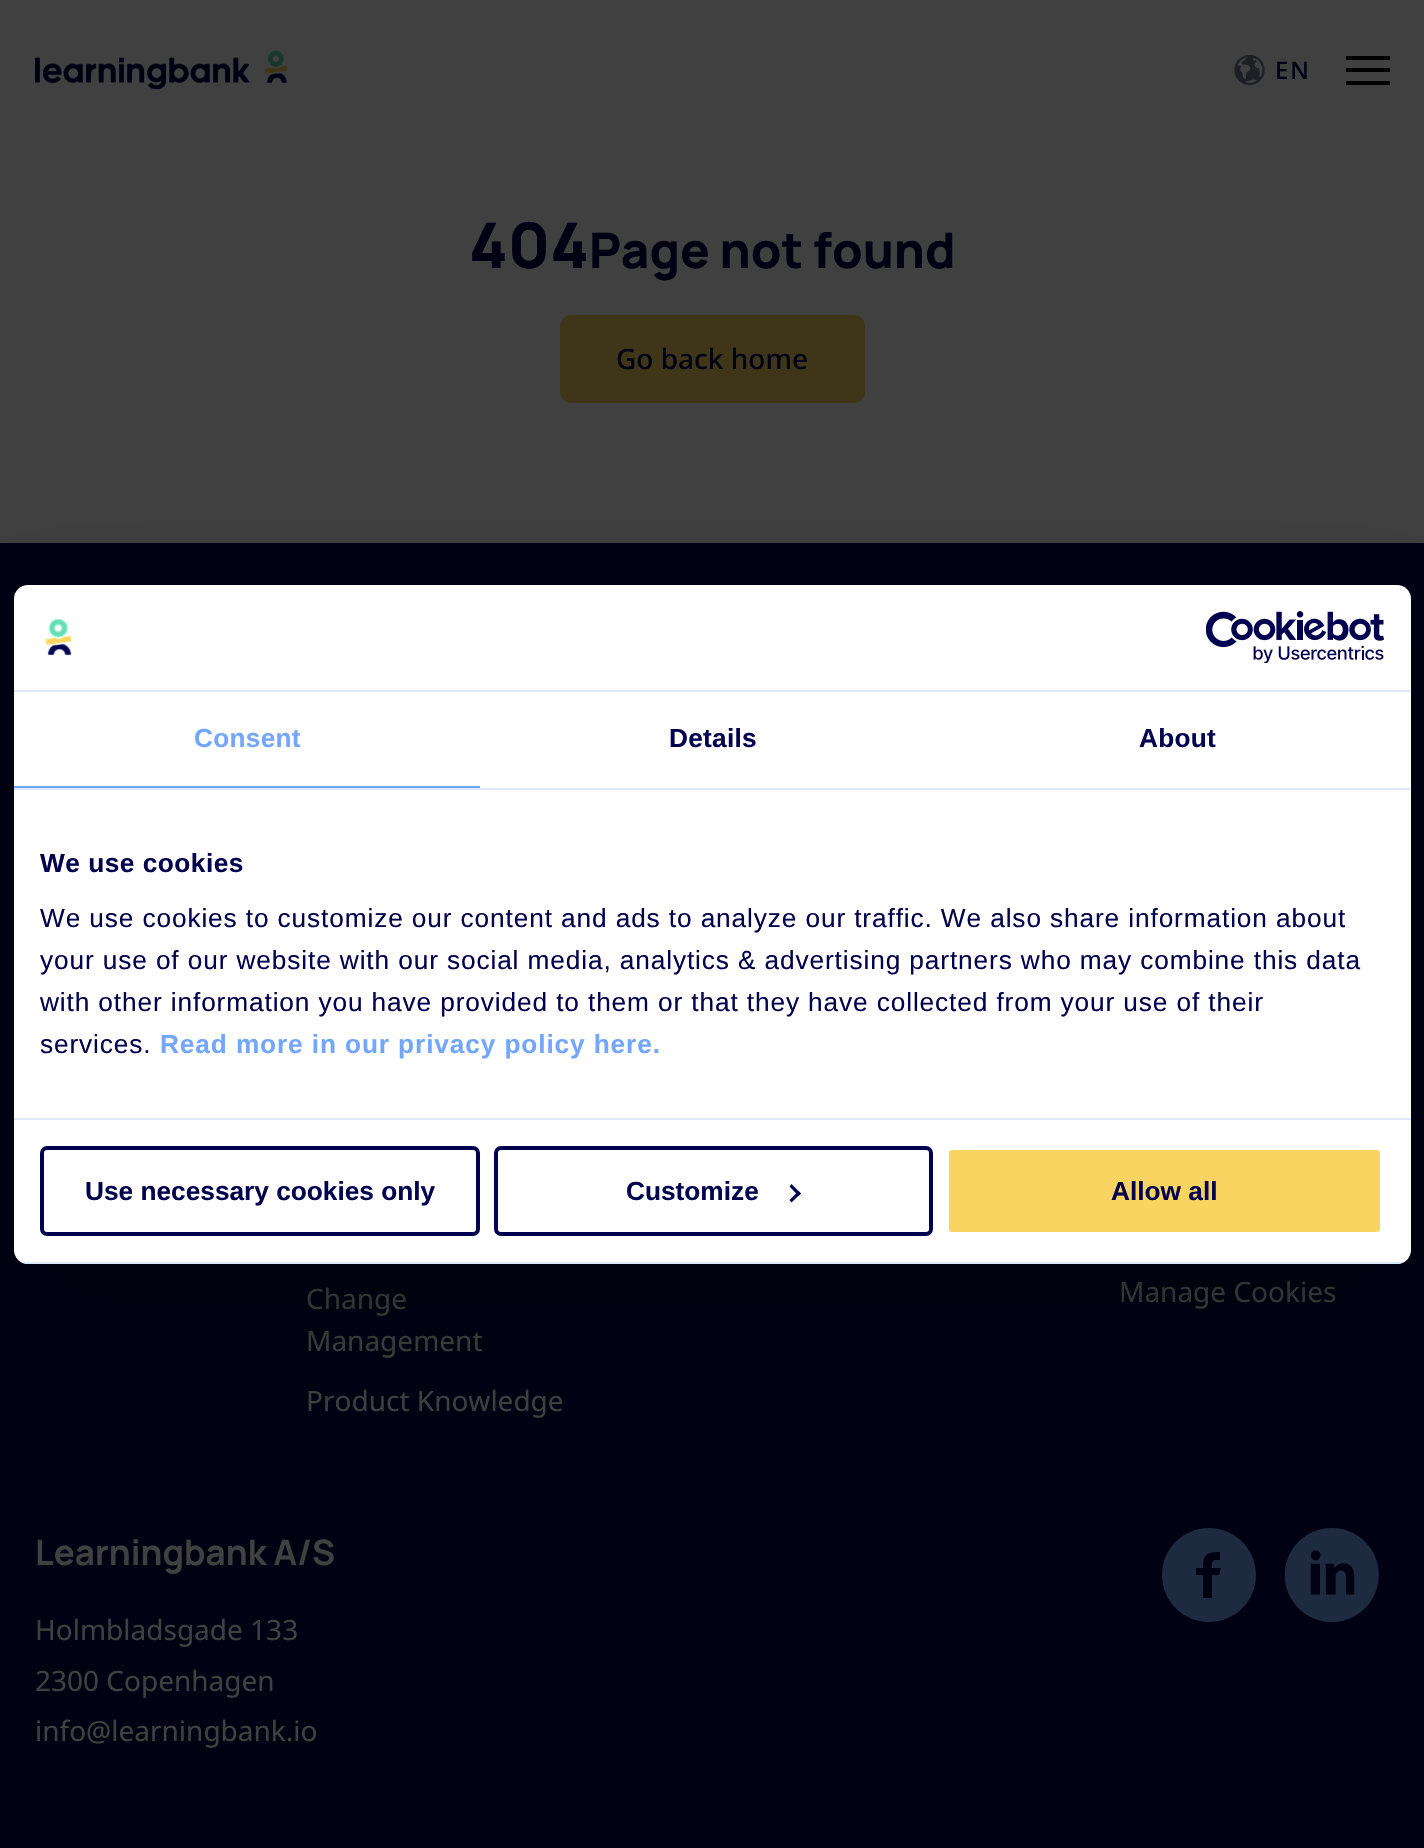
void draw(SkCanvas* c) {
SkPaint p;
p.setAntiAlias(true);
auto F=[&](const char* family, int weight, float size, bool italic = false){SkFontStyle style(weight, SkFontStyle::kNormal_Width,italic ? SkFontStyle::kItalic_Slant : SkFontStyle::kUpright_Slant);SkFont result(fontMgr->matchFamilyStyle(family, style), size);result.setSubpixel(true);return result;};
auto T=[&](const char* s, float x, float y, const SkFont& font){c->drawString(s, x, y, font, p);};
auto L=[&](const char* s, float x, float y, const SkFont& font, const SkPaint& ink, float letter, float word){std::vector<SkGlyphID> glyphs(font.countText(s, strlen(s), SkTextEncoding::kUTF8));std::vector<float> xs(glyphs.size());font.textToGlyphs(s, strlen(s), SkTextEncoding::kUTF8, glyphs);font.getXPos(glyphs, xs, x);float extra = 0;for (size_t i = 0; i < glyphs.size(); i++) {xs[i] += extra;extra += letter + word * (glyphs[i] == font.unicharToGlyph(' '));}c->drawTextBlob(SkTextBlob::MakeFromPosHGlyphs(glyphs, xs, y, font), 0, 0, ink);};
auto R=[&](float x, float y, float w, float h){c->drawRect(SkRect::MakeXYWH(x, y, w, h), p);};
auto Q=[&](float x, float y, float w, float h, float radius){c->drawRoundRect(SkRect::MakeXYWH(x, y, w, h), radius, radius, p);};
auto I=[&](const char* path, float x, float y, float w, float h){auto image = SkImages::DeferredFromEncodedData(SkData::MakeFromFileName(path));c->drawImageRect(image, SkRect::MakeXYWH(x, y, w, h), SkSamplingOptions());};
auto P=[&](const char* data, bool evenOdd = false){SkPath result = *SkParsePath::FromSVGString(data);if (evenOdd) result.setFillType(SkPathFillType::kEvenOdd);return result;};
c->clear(0xff404040);
I("1.png",35,50,252,40);
I("2.png",1234,54,31,32);
auto f1 = F("Noto Sans",500,24);
p.setColor(0xff010114);
L("EN",1275,79,f1,p,2,0);
p.setColor(0xff000000);
R(1346,68,44,4);
R(1346,56,44,4);
R(1346,81,44,4);
auto f2 = F("Manrope",800,63);
p.setColor(0xff010114);
T("404",469,268,f2);
auto f3 = F("Manrope",800,49);
T("Page not found",589,268,f3);
p.setColor(0xff3f3518);
c->drawRoundRect(SkRect::MakeXYWH(562,317,301,84),9,9,p);
p.setStroke(true);
p.setStrokeWidth(4);
c->drawRoundRect(SkRect::MakeXYWH(562,317,301,84),9,9,p);
auto f4 = F("Noto Sans",500,28);
p.setStroke(false);
p.setColor(0xff010114);
T("Go back home",616,369,f4);
R(0,543,1424,1305);
auto f5 = F("Noto Sans",400,28);
p.setColor(0xff404040);
T("Change",306,1309,f5);
T("Management",306,1351,f5);
T("Product Knowledge",306,1411,f5);
T("Manage Cookies",1119,1302,f5);
auto f6 = F("Manrope",700,35);
T("Learningbank A/S",35,1565,f6);
T("Holmbladsgade 133",35,1640,f5);
T("2300 Copenhagen",35,1691,f5);
T("info@learningbank.io",35,1741,f5);
p.setColor(0xff1d2a40);
c->drawPath(P("M1209 1528c-26 0-47 21-47 47c0 26 21 47 47 47c26 0 47-21 47-47c0-26-21-47-47-47zm12 32c-9 0-9-1-9 8h9l-2 7h-7v23h-9v-23h-7v-7h7c0-14 4-16 17-16v8z"),p);
I("3.png",1284,1528,95,94);
p.setColor(0x4d000000);
p.setMaskFilter(SkMaskFilter::MakeBlur(kNormal_SkBlurStyle, 59.5));
c->drawRoundRect(SkRect::MakeXYWH(14,641,1397,679),14,14,p);
p.setMaskFilter(nullptr);
p.setColor(0xffffffff);
Q(14,585,1397,679,14);
p.setColor(0xffdce9f9);
R(14,690,1397,2);
I("4.png",45,618,27,38);
I("5.png",1206,611,178,52);
R(14,788,1397,2);
p.setColor(0xff73a6ff);
R(14,786,466,2);
auto f7 = F("Liberation Sans",700,26.25);
L("Consent",194,747,f7,p,.25,0);
p.setColor(0xff03024e);
L("Details",669,747,f7,p,.25,0);
L("About",1139,747,f7,p,.25,0);
p.setColor(0xffdce9f9);
R(14,1118,1397,2);
p.setColor(0xff03024e);
L("We use cookies",40,872,f7,p,.5,0);
auto f8 = F("Liberation Sans",400,26.25);
L("We use cookies to customize our content and ads to analyze our traffic. We also share information about",40,927,f8,p,.88,0);
L("your use of our website with our social media, analytics & advertising partners who may combine this data",40,969,f8,p,.88,0);
L("with other information you have provided to them or that they have collected from your use of their",40,1011,f8,p,.88,0);
L("services.",40,1053,f8,p,.88,0);
p.setColor(0xff73a6ff);
L("Read more in our privacy policy here.",160,1053,f7,p,.88,0);
c->save();
c->clipPath(P("M28 585h1369c7.5 0 14 6.5 14 14v651c0 7.5-6.5 14-14 14h-1369c-7.5 0-14-6.5-14-14v-651c0-7.5 6.5-14 14-14z"),true);
p.setColor(0xffdce9f9);
R(14,1262,1397,2);
c->restore();
p.setStroke(true);
p.setColor(0xff03024e);
c->drawRoundRect(SkRect::MakeXYWH(42,1148,436,86),5,5,p);
p.setStroke(false);
T("Use necessary cookies only",85,1200,f7);
p.setStroke(true);
c->drawRoundRect(SkRect::MakeXYWH(496,1148,435,86),5,5,p);
p.setStroke(false);
T("Customize",626,1200,f7);
c->drawPath(P("M791.5 1184l9.5 9.5l-2.5 2.5l-9-9.5z"),p);
c->drawPath(P("M798.5 1191l2.5 2.5l-9.5 9l-2-2.5z"),p);
p.setColor(0xfffad461);
c->drawRoundRect(SkRect::MakeXYWH(947,1148,435,86),5,5,p);
p.setStroke(true);
p.setColor(0xffffffff);
c->drawRoundRect(SkRect::MakeXYWH(947,1148,435,86),5,5,p);
p.setStroke(false);
p.setColor(0xff03024e);
T("Allow all",1111,1200,f7);
}
